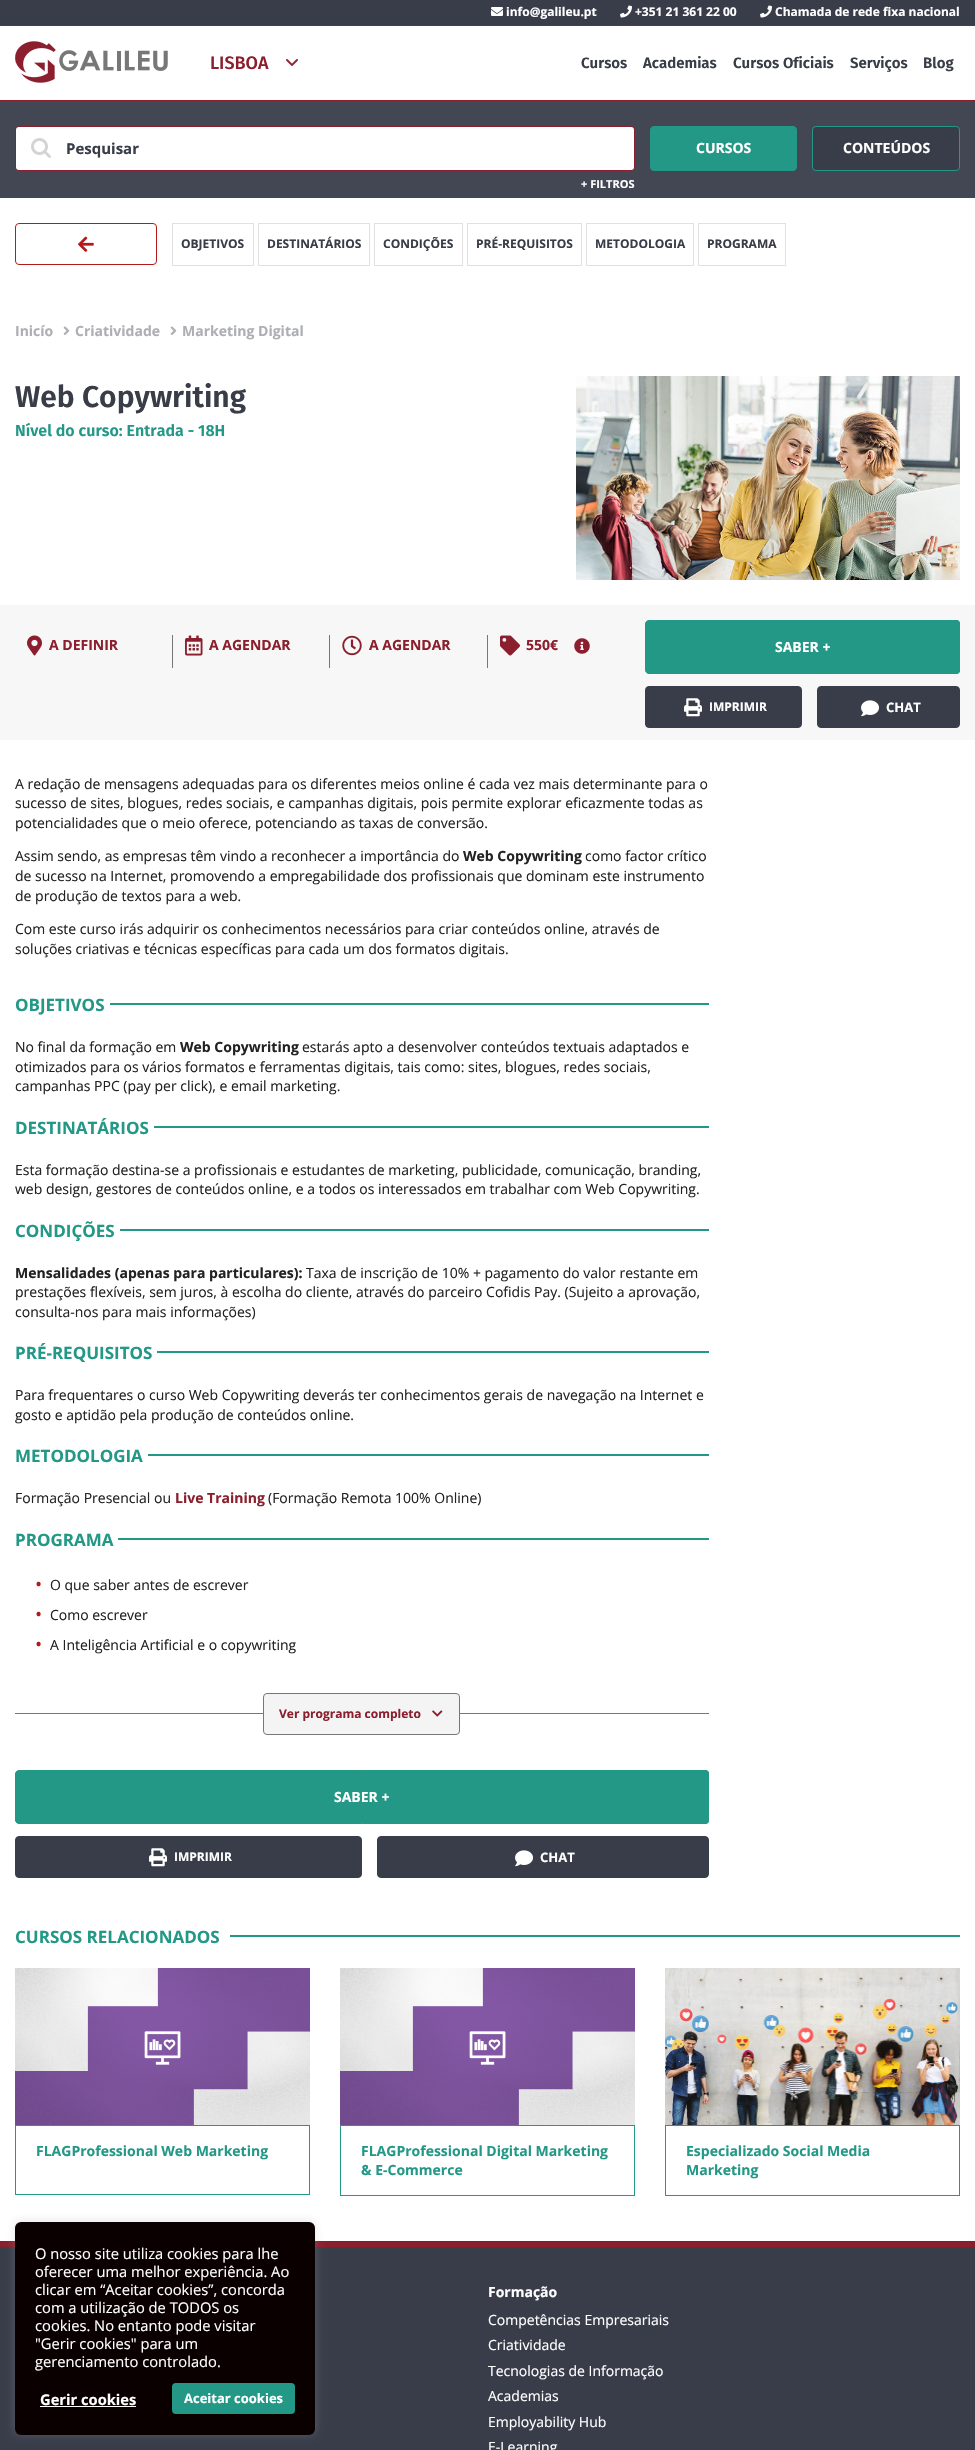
void draw(SkCanvas* c) {
SkPaint p;
p.setAntiAlias(true);
auto F=[&](const char* family, int weight, float size, bool italic = false){SkFontStyle style(weight, SkFontStyle::kNormal_Width,italic ? SkFontStyle::kItalic_Slant : SkFontStyle::kUpright_Slant);SkFont result(fontMgr->matchFamilyStyle(family, style), size);result.setSubpixel(true);return result;};
auto T=[&](const char* s, float x, float y, const SkFont& font){c->drawString(s, x, y, font, p);};
auto R=[&](float x, float y, float w, float h){c->drawRect(SkRect::MakeXYWH(x, y, w, h), p);};
auto Q=[&](float x, float y, float w, float h, float radius){c->drawRoundRect(SkRect::MakeXYWH(x, y, w, h), radius, radius, p);};
auto I=[&](const char* path, float x, float y, float w, float h){auto image = SkImages::DeferredFromEncodedData(SkData::MakeFromFileName(path));c->drawImageRect(image, SkRect::MakeXYWH(x, y, w, h), SkSamplingOptions());};
auto P=[&](const char* data, bool evenOdd = false){SkPath result = *SkParsePath::FromSVGString(data);if (evenOdd) result.setFillType(SkPathFillType::kEvenOdd);return result;};
c->clear(0xffffffff);
p.setColor(0xff393d4a);
R(0,0,975,25);
p.setColor(0xff8b1f2d);
R(0,25,975,1);
I("1.png",491,7,12,9);
auto f1 = F("Open Sans",700,12);
p.setColor(0xffffffff);
T("info@galileu.pt",506,16,f1);
I("2.png",620,5,12,13);
T("+351 21 361 22 00",635,16,f1);
I("2.png",760,5,12,13);
T("Chamada de rede fixa nacional",775,16,f1);
p.setColor(0xff8b1f2d);
R(0,100,975,1);
I("3.png",15,41,153,42);
I("4.png",286,59,12,7);
auto f2 = F("Fira Sans",500,18);
T("LISBOA",210,69,f2);
auto f3 = F("Fira Sans",600,15);
p.setColor(0xff393d48);
T("Cursos",581,68,f3);
T("Academias",643,68,f3);
T("Cursos Oficiais",733,68,f3);
T("Serviços",850,68,f3);
T("Blog",923,68,f3);
p.setColor(0xff434753);
R(0,101,975,97);
p.setStroke(true);
p.setStrokeWidth(1);
p.setColor(0xff8b1f2d);
c->drawRoundRect(SkRect::MakeXYWH(15.5,126.5,619,44),3.5,3.5,p);
p.setStroke(false);
p.setColor(0xffffffff);
Q(16,127,618,43,3);
I("5.png",31,138,20,20);
auto f4 = F("Open Sans",700,15);
p.setColor(0xff393d48);
T("Pesquisar",66,154,f4);
p.setColor(0xff239886);
c->drawRoundRect(SkRect::MakeXYWH(650.5,126.5,146,44),3.5,3.5,p);
p.setStroke(true);
c->drawRoundRect(SkRect::MakeXYWH(650.5,126.5,146,44),3.5,3.5,p);
auto f5 = F("Open Sans",700,14);
p.setStroke(false);
p.setColor(0xffffffff);
T("CURSOS",696,153,f5);
p.setColor(0xff393d4a);
c->drawRoundRect(SkRect::MakeXYWH(812.5,126.5,147,44),3.5,3.5,p);
p.setStroke(true);
p.setColor(0xff239886);
c->drawRoundRect(SkRect::MakeXYWH(812.5,126.5,147,44),3.5,3.5,p);
p.setStroke(false);
p.setColor(0xffffffff);
T("CONTEÚDOS",843,153,f5);
auto f6 = F("Open Sans",700,11);
T("+ FILTROS",581,188,f6);
p.setStroke(true);
p.setColor(0xffb31b1b);
c->drawRoundRect(SkRect::MakeXYWH(15.5,223.5,141,41),3.5,3.5,p);
I("6.png",78,236,16,16);
p.setColor(0xffe1e1e1);
c->drawRect(SkRect::MakeXYWH(172.5,223.5,81,42),p);
p.setStroke(false);
p.setColor(0xff393d48);
T("OBJETIVOS",181,248,f1);
p.setStroke(true);
p.setColor(0xffe1e1e1);
c->drawRect(SkRect::MakeXYWH(258.5,223.5,111,42),p);
p.setStroke(false);
p.setColor(0xff393d48);
T("DESTINATÁRIOS",267,248,f1);
p.setStroke(true);
p.setColor(0xffe1e1e1);
c->drawRect(SkRect::MakeXYWH(374.5,223.5,88,42),p);
p.setStroke(false);
p.setColor(0xff393d48);
T("CONDIÇÕES",383,248,f1);
p.setStroke(true);
p.setColor(0xffe1e1e1);
c->drawRect(SkRect::MakeXYWH(467.5,223.5,114,42),p);
p.setStroke(false);
p.setColor(0xff393d48);
T("PRÉ-REQUISITOS",476,248,f1);
p.setStroke(true);
p.setColor(0xffe1e1e1);
c->drawRect(SkRect::MakeXYWH(586.5,223.5,107,42),p);
p.setStroke(false);
p.setColor(0xff393d48);
T("METODOLOGIA",595,248,f1);
p.setStroke(true);
p.setColor(0xffe1e1e1);
c->drawRect(SkRect::MakeXYWH(698.5,223.5,87,42),p);
p.setStroke(false);
p.setColor(0xff393d48);
T("PROGRAMA",707,248,f1);
p.setColor(0xffaeafb3);
T("Inicío",15,336,f5);
I("7.png",63,326,7,9);
T("Criatividade",75,336,f5);
I("7.png",170,326,7,9);
T("Marketing Digital",182,336,f5);
auto f7 = F("Fira Sans",600,30);
p.setColor(0xff393d48);
T("Web Copywriting",15,407,f7);
auto f8 = F("Fira Sans",600,16);
p.setColor(0xff239886);
T("Nível do curso: Entrada - 18H",15,436,f8);
I("8.png",576,376,384,204);
p.setColor(0xfff7f7f7);
R(0,605,975,135);
p.setColor(0xff777777);
R(172,635,1,33);
I("9.png",27,635,15,21);
p.setColor(0xff8b1f2d);
T("A DEFINIR",49,650,f5);
p.setColor(0xff777777);
R(329,635,1,33);
I("10.png",185,635,18,21);
p.setColor(0xff8b1f2d);
T("A AGENDAR",209,650,f5);
p.setColor(0xff777777);
R(487,635,1,33);
I("11.png",342,635,20,21);
p.setColor(0xff8b1f2d);
T("A AGENDAR",369,650,f5);
I("12.png",500,635,20,21);
T("550€",526,650,f5);
I("13.png",574,638,16,16);
p.setColor(0xff239886);
c->drawPath(P("M649 620.5h308c1.5 0 2.5 1 2.5 2.5v48c0 1.5-1 2.5-2.5 2.5h-308c-2 0-3.5-1.5-3.5-3.5v-46c0-2 1.5-3.5 3.5-3.5z"),p);
p.setStroke(true);
c->drawPath(P("M649 620.5h308c1.5 0 2.5 1 2.5 2.5v48c0 1.5-1 2.5-2.5 2.5h-308c-2 0-3.5-1.5-3.5-3.5v-46c0-2 1.5-3.5 3.5-3.5z"),p);
p.setStroke(false);
p.setColor(0xffffffff);
T("SABER +",775,652,f5);
p.setColor(0xff393d4a);
c->drawRoundRect(SkRect::MakeXYWH(645.5,686.5,156,41),3.5,3.5,p);
p.setStroke(true);
c->drawRoundRect(SkRect::MakeXYWH(645.5,686.5,156,41),3.5,3.5,p);
I("14.png",684,698,18,19);
p.setStroke(false);
p.setColor(0xffffffff);
T("IMPRIMIR",709,711,f1);
p.setColor(0xff393d4a);
c->drawRoundRect(SkRect::MakeXYWH(817.5,686.5,142,41),3.5,3.5,p);
p.setStroke(true);
c->drawRoundRect(SkRect::MakeXYWH(817.5,686.5,142,41),3.5,3.5,p);
I("15.png",861,700,18,17);
auto f9 = F("Open Sans",700,13);
p.setStroke(false);
p.setColor(0xffffffff);
T("CHAT",886,712,f9);
auto f10 = F("Open Sans",400,14);
p.setColor(0xff222222);
T("A redação de mensagens adequadas para os diferentes meios online é cada vez mais determinante para o",15,789,f10);
T("sucesso de sites, blogues, redes sociais, e campanhas digitais, pois permite explorar eficazmente todas as",15,808,f10);
T("potencialidades que o meio oferece, potenciando as taxas de conversão.",15,828,f10);
T("Assim sendo, as empresas têm vindo a reconhecer a importância do",15,861,f10);
T("Web Copywriting",463,861,f5);
T("como factor crítico",585,861,f10);
T("de sucesso na Internet, promovendo a empregabilidade dos profissionais que dominam este instrumento",15,881,f10);
T("de produção de textos para a web.",15,901,f10);
T("Com este curso irás adquirir os conhecimentos necessários para criar conteúdos online, através de",15,934,f10);
T("soluções criativas e técnicas específicas para cada um dos formatos digitais.",15,954,f10);
auto f11 = F("Open Sans",700,17);
p.setColor(0xff239886);
T("OBJETIVOS",15,1011,f11);
R(110,1003,599,2);
p.setColor(0xff222222);
T("No final da formação em",15,1052,f10);
T("Web Copywriting",180,1052,f5);
T("estarás apto a desenvolver conteúdos textuais adaptados e",302,1052,f10);
T("otimizados para os vários formatos e ferramentas digitais, tais como: sites, blogues, redes sociais,",15,1072,f10);
T("campanhas PPC (pay per click), e email marketing.",15,1091,f10);
p.setColor(0xff239886);
T("DESTINATÁRIOS",15,1134,f11);
R(154,1126,555,2);
p.setColor(0xff222222);
T("Esta formação destina-se a profissionais e estudantes de marketing, publicidade, comunicação, branding,",15,1175,f10);
T("web design, gestores de conteúdos online, e a todos os interessados em trabalhar com Web Copywriting.",15,1194,f10);
p.setColor(0xff239886);
T("CONDIÇÕES",15,1237,f11);
R(120,1229,589,2);
p.setColor(0xff222222);
T("Mensalidades (apenas para particulares):",15,1278,f5);
T("Taxa de inscrição de 10% + pagamento do valor restante em",306,1278,f10);
T("prestações flexíveis, sem juros, à escolha do cliente, através do parceiro Cofidis Pay. (Sujeito a aprovação,",15,1297,f10);
T("consulta-nos para mais informações)",15,1317,f10);
p.setColor(0xff239886);
T("PRÉ-REQUISITOS",15,1359,f11);
R(157,1351,552,2);
p.setColor(0xff222222);
T("Para frequentares o curso Web Copywriting deverás ter conhecimentos gerais de navegação na Internet e",15,1400,f10);
T("gosto e aptidão pela produção de conteúdos online.",15,1420,f10);
p.setColor(0xff239886);
T("METODOLOGIA",15,1462,f11);
R(148,1454,561,2);
p.setColor(0xff222222);
T("Formação Presencial ou",15,1503,f10);
p.setColor(0xff8b1f2d);
T("Live Training",175,1503,f5);
p.setColor(0xff222222);
T("(Formação Remota 100% Online)",268,1503,f10);
p.setColor(0xff239886);
T("PROGRAMA",15,1546,f11);
R(118,1538,591,2);
auto f12 = F("Open Sans",400,19);
p.setColor(0xffb31b1b);
T("•",35,1591,f12);
p.setColor(0xff222222);
T("O que saber antes de escrever",50,1590,f10);
p.setColor(0xffb31b1b);
T("•",35,1621,f12);
p.setColor(0xff222222);
T("Como escrever",50,1620,f10);
p.setColor(0xffb31b1b);
T("•",35,1651,f12);
p.setColor(0xff222222);
T("A Inteligência Artificial e o copywriting",50,1650,f10);
p.setColor(0xff777777);
R(15,1713,694,1);
p.setColor(0xfff4f4f4);
c->drawRoundRect(SkRect::MakeXYWH(263.5,1693.5,196,41),3.5,3.5,p);
p.setStroke(true);
p.setColor(0xff777777);
c->drawRoundRect(SkRect::MakeXYWH(263.5,1693.5,196,41),3.5,3.5,p);
p.setStroke(false);
p.setColor(0xff8b1f2d);
T("Ver programa completo",279,1718,f1);
I("16.png",432,1710,11,7);
p.setColor(0xff239886);
c->drawPath(P("M19 1770.5h687c1.5 0 2.5 1 2.5 2.5v48c0 1.5-1 2.5-2.5 2.5h-687c-2 0-3.5-1.5-3.5-3.5v-46c0-2 1.5-3.5 3.5-3.5z"),p);
p.setStroke(true);
c->drawPath(P("M19 1770.5h687c1.5 0 2.5 1 2.5 2.5v48c0 1.5-1 2.5-2.5 2.5h-687c-2 0-3.5-1.5-3.5-3.5v-46c0-2 1.5-3.5 3.5-3.5z"),p);
p.setStroke(false);
p.setColor(0xffffffff);
T("SABER +",334,1802,f5);
p.setColor(0xff393d4a);
c->drawRoundRect(SkRect::MakeXYWH(15.5,1836.5,346,41),3.5,3.5,p);
p.setStroke(true);
c->drawRoundRect(SkRect::MakeXYWH(15.5,1836.5,346,41),3.5,3.5,p);
I("14.png",149,1848,18,19);
p.setStroke(false);
p.setColor(0xffffffff);
T("IMPRIMIR",174,1861,f1);
p.setColor(0xff393d4a);
c->drawRoundRect(SkRect::MakeXYWH(377.5,1836.5,331,41),3.5,3.5,p);
p.setStroke(true);
c->drawRoundRect(SkRect::MakeXYWH(377.5,1836.5,331,41),3.5,3.5,p);
I("15.png",515,1850,18,17);
p.setStroke(false);
p.setColor(0xffffffff);
T("CHAT",540,1862,f9);
p.setColor(0xff239886);
T("CURSOS RELACIONADOS",15,1943,f11);
R(230,1935,730,2);
I("17.png",15,1968,295,157);
p.setStroke(true);
c->drawRect(SkRect::MakeXYWH(15.5,2125.5,294,69),p);
p.setStroke(false);
T("FLAGProfessional Web Marketing",36,2156,f5);
I("17.png",340,1968,295,157);
p.setStroke(true);
c->drawRect(SkRect::MakeXYWH(340.5,2125.5,294,70),p);
p.setStroke(false);
T("FLAGProfessional Digital Marketing",361,2156,f5);
T("& E-Commerce",361,2175,f5);
I("18.png",665,1968,295,157);
p.setStroke(true);
c->drawRect(SkRect::MakeXYWH(665.5,2125.5,294,70),p);
p.setStroke(false);
T("Especializado Social Media",686,2156,f5);
T("Marketing",686,2175,f5);
p.setColor(0xff393d4a);
R(0,2241,975,1);
R(0,2247,975,203);
p.setColor(0xff8b1f2d);
R(0,2242,975,5);
p.setColor(0x4dacabab);
p.setMaskFilter(SkMaskFilter::MakeBlur(kNormal_SkBlurStyle, 5));
c->drawRoundRect(SkRect::MakeXYWH(15,2221,300,213),6,6,p);
p.setMaskFilter(nullptr);
p.setColor(0xff0a0000);
Q(15,2222,300,213,6);
auto f13 = F("Open Sans",400,14.7);
p.setColor(0xffffffff);
T("O nosso site utiliza cookies para lhe",35,2259,f13);
T("oferecer uma melhor experiência. Ao",35,2277,f13);
T("clicar em “Aceitar cookies”, concorda",35,2295,f13);
T("com a utilização de TODOS os",35,2313,f13);
T("cookies. No entanto pode visitar",35,2331,f13);
T("\"Gerir cookies\" para um",35,2349,f13);
T("gerenciamento controlado.",35,2367,f13);
auto f14 = F("Open Sans",700,14.7);
T("Gerir cookies",40,2405,f14);
R(40,2406,96,1);
p.setColor(0xff239886);
Q(172,2383,123,31,4);
p.setColor(0xffffffff);
T("Aceitar cookies",184,2403,f9);
T("Formação",488,2297,f5);
T("Competências Empresariais",488,2325,f10);
T("Criatividade",488,2350,f10);
T("Tecnologias de Informação",488,2376,f10);
T("Academias",488,2401,f10);
T("Employability Hub",488,2427,f10);
T("E-Learning",488,2452,f10);
}
